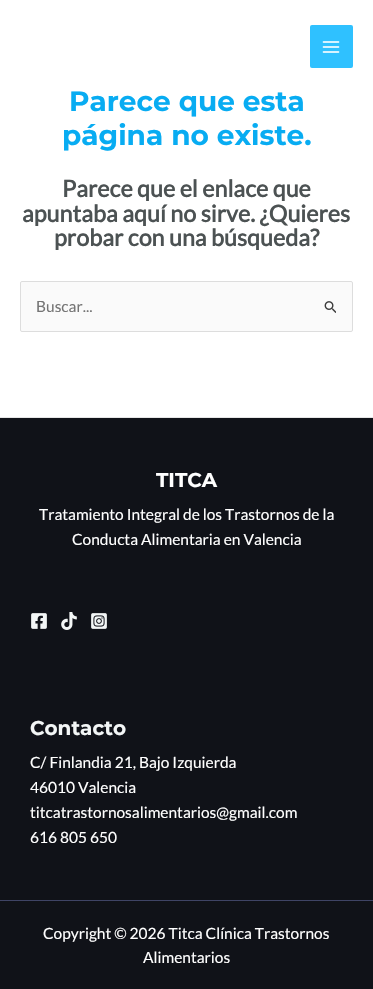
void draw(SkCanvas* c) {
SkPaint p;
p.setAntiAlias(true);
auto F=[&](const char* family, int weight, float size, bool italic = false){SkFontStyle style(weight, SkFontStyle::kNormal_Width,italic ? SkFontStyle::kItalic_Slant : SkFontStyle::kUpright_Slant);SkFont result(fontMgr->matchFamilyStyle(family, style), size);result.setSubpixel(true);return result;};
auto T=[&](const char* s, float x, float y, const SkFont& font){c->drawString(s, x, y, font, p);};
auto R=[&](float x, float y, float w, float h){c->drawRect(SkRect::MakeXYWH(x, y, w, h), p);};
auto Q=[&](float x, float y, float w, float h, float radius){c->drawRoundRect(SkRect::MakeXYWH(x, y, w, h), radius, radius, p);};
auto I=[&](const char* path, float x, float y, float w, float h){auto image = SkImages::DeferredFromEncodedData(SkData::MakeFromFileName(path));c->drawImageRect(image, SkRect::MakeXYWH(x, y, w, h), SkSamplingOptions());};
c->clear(0xffffffff);
p.setColor(0xff2fc1ff);
Q(310,25,43,43,2);
I("1.png",322,41,18,12);
auto f1 = F("Montserrat",100,28);
p.setColor(0xff08acf2);
T("Parece que esta",69,111,f1);
T("página no existe.",62,145,f1);
auto f2 = F("Lato",700,23.25);
p.setColor(0xff4c5253);
T("Parece que el enlace que",62,197,f2);
T("apuntaba aquí no sirve. ¿Quieres",22,222,f2);
T("probar con una búsqueda?",54,246,f2);
p.setColor(0xfffafafa);
c->drawRoundRect(SkRect::MakeXYWH(20.5,281.5,332,50),1.5,1.5,p);
p.setStroke(true);
p.setStrokeWidth(1);
p.setColor(0xffdddddd);
c->drawRoundRect(SkRect::MakeXYWH(20.5,281.5,332,50),1.5,1.5,p);
auto f3 = F("Lato",400,15.5);
p.setStroke(false);
p.setColor(0xff757575);
T("Buscar...",36,312,f3);
I("2.png",324,301,12,12);
p.setColor(0xff101218);
R(0,418,373,482);
p.setColor(0xffe6e6e6);
R(0,417,373,1);
auto f4 = F("Montserrat",100,20);
p.setColor(0xffffffff);
T("TITCA",156,487,f4);
T("Tratamiento Integral de los Trastornos de la",39,520,f3);
T("Conducta Alimentaria en Valencia",72,545,f3);
I("3.png",31,613,16,16);
I("4.png",61,612,16,18);
I("5.png",91,613,16,16);
p.setColor(0xfff3f6f6);
T("Contacto",30,735,f4);
p.setColor(0xffffffff);
T("C/ Finlandia 21, Bajo Izquierda",30,768,f3);
T("46010 Valencia",30,793,f3);
T("titcatrastornosalimentarios@gmail.com",30,818,f3);
T("616 805 650",30,843,f3);
p.setColor(0xff101218);
R(0,901,373,88);
p.setColor(0xff3f4465);
R(0,900,373,1);
p.setColor(0xffffffff);
T("Copyright © 2026 Titca Clínica Trastornos",43,939,f3);
T("Alimentarios",143,963,f3);
}
